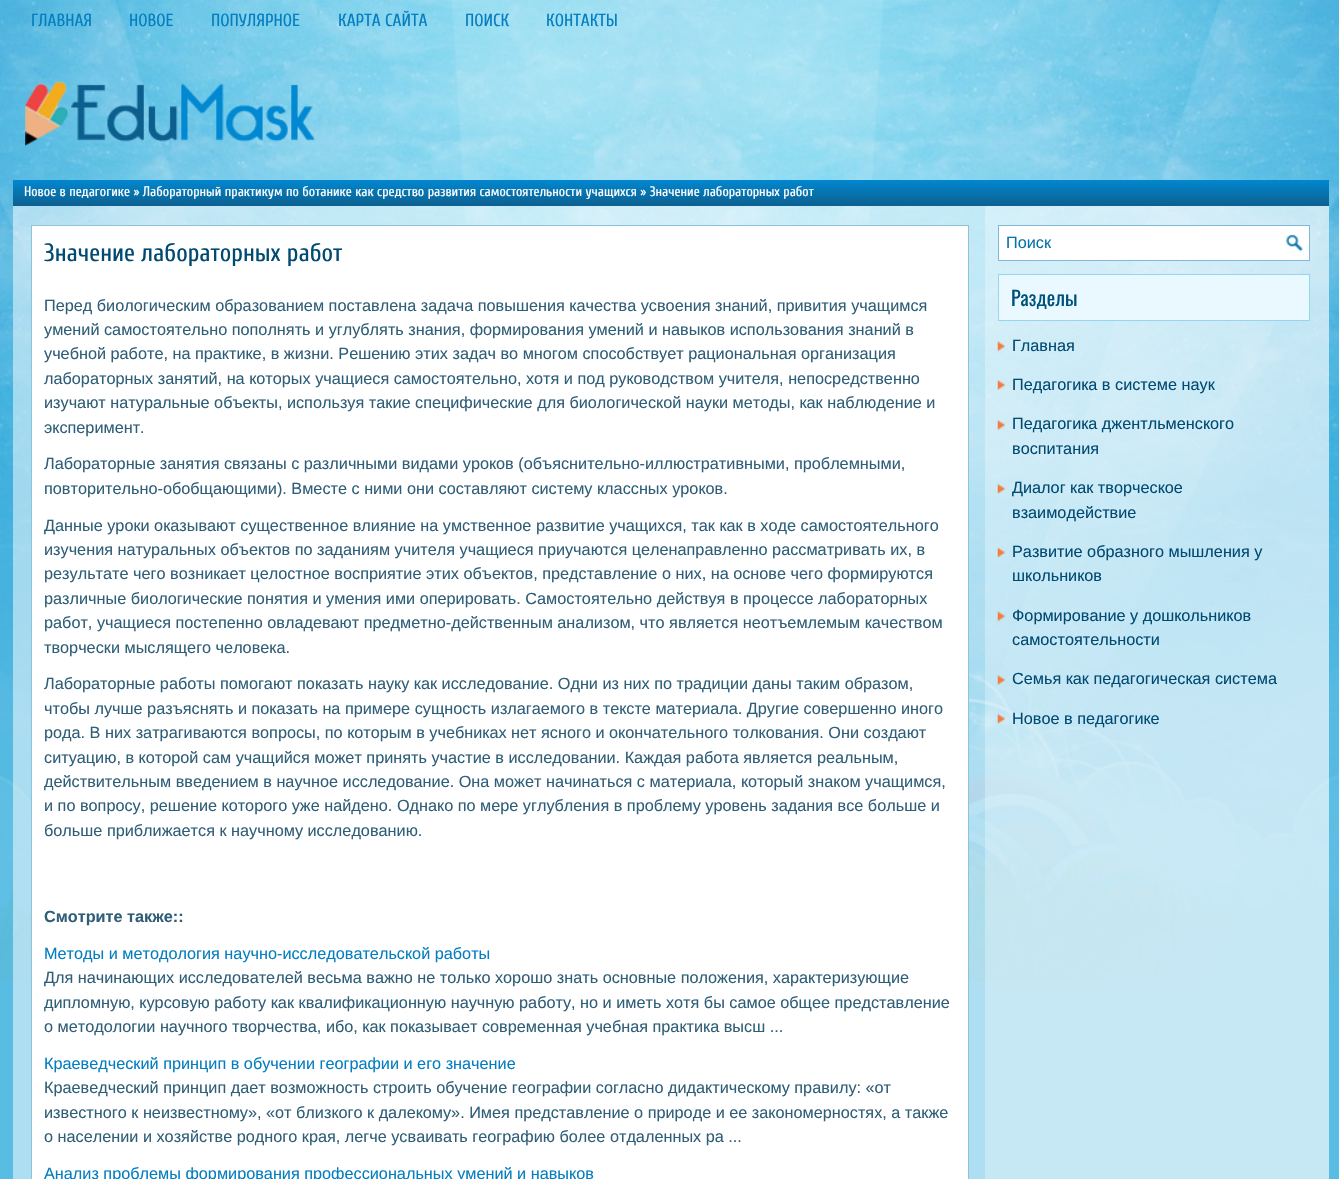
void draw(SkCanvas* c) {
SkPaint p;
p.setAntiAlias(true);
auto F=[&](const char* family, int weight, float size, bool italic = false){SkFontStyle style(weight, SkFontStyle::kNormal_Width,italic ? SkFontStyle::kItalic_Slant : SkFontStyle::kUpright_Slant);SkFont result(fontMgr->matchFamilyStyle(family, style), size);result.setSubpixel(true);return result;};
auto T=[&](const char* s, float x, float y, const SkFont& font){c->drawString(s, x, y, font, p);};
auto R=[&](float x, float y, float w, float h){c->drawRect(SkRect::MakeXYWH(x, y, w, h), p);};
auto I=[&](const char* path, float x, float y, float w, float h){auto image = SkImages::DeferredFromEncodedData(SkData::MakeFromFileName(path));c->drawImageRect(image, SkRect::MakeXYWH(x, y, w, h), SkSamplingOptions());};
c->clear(0xff59bce3);
I("1.png",0,0,1339,982);
auto f1 = F("Cuprum",400,17.5);
p.setColor(0xff047ec0);
T("ГЛАВНАЯ",31,26,f1);
T("НОВОЕ",129,26,f1);
T("ПОПУЛЯРНОЕ",211,26,f1);
T("КАРТА САЙТА",338,26,f1);
T("ПОИСК",465,26,f1);
T("КОНТАКТЫ",546,26,f1);
I("2.png",25,81,290,66);
{
const SkColor colors[] = {0xff0287d0,0xff0c608f};
const float stops[] = {0,1};
const SkPoint ends[] = {{671,180}, {671,206}};
p.setShader(SkGradientShader::MakeLinear(ends, colors, stops, 2, SkTileMode::kClamp));
p.setAlpha(255);
}
R(13,180,1316,26);
auto f2 = F("Cuprum",400,13.75);
p.setShader(nullptr);
p.setColor(0xffffffff);
T("Новое в педагогике » Лабораторный практикум по ботанике как средство развития самостоятельности учащихся » Значение лабораторных работ",24,196,f2);
p.setColor(0x80ffffff);
R(13,206,1316,973);
p.setColor(0x4dffffff);
R(985,206,344,973);
p.setColor(0xffffffff);
c->drawRect(SkRect::MakeXYWH(31.5,225.5,937,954),p);
p.setStroke(true);
p.setStrokeWidth(1);
p.setColor(0xff8ec4da);
c->drawRect(SkRect::MakeXYWH(31.5,225.5,937,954),p);
auto f3 = F("Cuprum",400,25);
p.setStroke(false);
p.setColor(0xff014a72);
T("Значение лабораторных работ",44,261,f3);
auto f4 = F("Liberation Sans",400,16.25);
p.setColor(0xff2f5e78);
T("Перед биологическим образованием поставлена задача повышения качества усвоения знаний, привития учащимся",44,311,f4);
T("умений самостоятельно пополнять и углублять знания, формирования умений и навыков использования знаний в",44,335,f4);
T("учебной работе, на практике, в жизни. Решению этих задач во многом способствует рациональная организация",44,359,f4);
T("лабораторных занятий, на которых учащиеся самостоятельно, хотя и под руководством учителя, непосредственно",44,384,f4);
T("изучают натуральные объекты, используя такие специфические для биологической науки методы, как наблюдение и",44,408,f4);
T("эксперимент.",44,433,f4);
T("Лабораторные занятия связаны с различными видами уроков (объяснительно-иллюстративными, проблемными,",44,469,f4);
T("повторительно-обобщающими). Вместе с ними они составляют систему классных уроков.",44,494,f4);
T("Данные уроки оказывают существенное влияние на умственное развитие учащихся, так как в ходе самостоятельного",44,531,f4);
T("изучения натуральных объектов по заданиям учителя учащиеся приучаются целенаправленно рассматривать их, в",44,555,f4);
T("результате чего возникает целостное восприятие этих объектов, представление о них, на основе чего формируются",44,579,f4);
T("различные биологические понятия и умения ими оперировать. Самостоятельно действуя в процессе лабораторных",44,604,f4);
T("работ, учащиеся постепенно овладевают предметно-действенным анализом, что является неотъемлемым качеством",44,628,f4);
T("творчески мыслящего человека.",44,653,f4);
T("Лабораторные работы помогают показать науку как исследование. Одни из них по традиции даны таким образом,",44,689,f4);
T("чтобы лучше разъяснять и показать на примере сущность излагаемого в тексте материала. Другие совершенно иного",44,714,f4);
T("рода. В них затрагиваются вопросы, по которым в учебниках нет ясного и окончательного толкования. Они создают",44,738,f4);
T("ситуацию, в которой сам учащийся может принять участие в исследовании. Каждая работа является реальным,",44,763,f4);
T("действительным введением в научное исследование. Она может начинаться с материала, который знаком учащимся,",44,787,f4);
T("и по вопросу, решение которого уже найдено. Однако по мере углубления в проблему уровень задания все больше и",44,811,f4);
T("больше приближается к научному исследованию.",44,836,f4);
auto f5 = F("Liberation Sans",700,16.25);
T("Смотрите также::",44,922,f5);
p.setColor(0xff047ec0);
T("Методы и методология научно-исследовательской работы",44,959,f4);
p.setColor(0xff2f5e78);
T("Для начинающих исследователей весьма важно не только хорошо знать основные положения, характеризующие",44,983,f4);
T("дипломную, курсовую работу как квалификационную научную работу, но и иметь хотя бы самое общее представление",44,1008,f4);
T("о методологии научного творчества, ибо, как показывает современная учебная практика высш ...",44,1032,f4);
p.setColor(0xff047ec0);
T("Краеведческий принцип в обучении географии и его значение",44,1069,f4);
p.setColor(0xff2f5e78);
T("Краеведческий принцип дает возможность строить обучение географии согласно дидактическому правилу: «от",44,1093,f4);
T("известного к неизвестному», «от близкого к далекому». Имея представление о природе и ее закономерностях, а также",44,1118,f4);
T("о населении и хозяйстве родного края, легче усваивать географию более отдаленных ра ...",44,1142,f4);
p.setColor(0xff047ec0);
T("Анализ проблемы формирования профессиональных умений и навыков",44,1179,f4);
p.setColor(0xffffffff);
R(999,226,310,34);
I("3.png",1286,234,17,18);
p.setStroke(true);
p.setColor(0xff80b8d7);
c->drawRect(SkRect::MakeXYWH(998.5,225.5,311,35),p);
p.setStroke(false);
p.setColor(0xff0773ae);
T("Поиск",1006,248,f4);
p.setColor(0xffe9f9ff);
c->drawRect(SkRect::MakeXYWH(998.5,274.5,311,46),p);
p.setStroke(true);
p.setColor(0xff97d5ed);
c->drawRect(SkRect::MakeXYWH(998.5,274.5,311,46),p);
auto f6 = F("Oswald",400,20);
p.setStroke(false);
p.setColor(0xff01517d);
T("Разделы",1011,306,f6);
I("4.png",997,341,8,11);
p.setColor(0xff014a72);
T("Главная",1012,351,f4);
I("5.png",997,380,8,10);
T("Педагогика в системе наук",1012,390,f4);
I("6.png",997,420,8,10);
T("Педагогика джентльменского",1012,429,f4);
T("воспитания",1012,454,f4);
I("7.png",997,483,8,11);
T("Диалог как творческое",1012,493,f4);
T("взаимодействие",1012,518,f4);
I("8.png",997,547,8,11);
T("Развитие образного мышления у",1012,557,f4);
T("школьников",1012,581,f4);
I("9.png",997,611,8,11);
T("Формирование у дошкольников",1012,621,f4);
T("самостоятельности",1012,645,f4);
I("10.png",997,675,8,10);
T("Семья как педагогическая система",1012,684,f4);
I("11.png",997,713,8,11);
T("Новое в педагогике",1012,724,f4);
}
